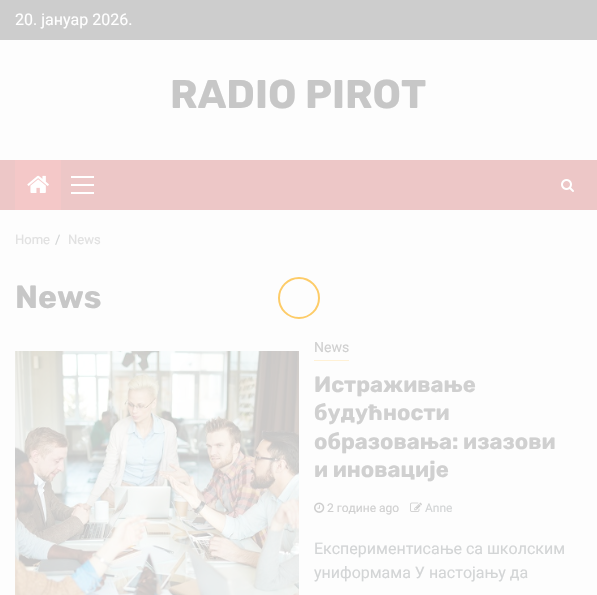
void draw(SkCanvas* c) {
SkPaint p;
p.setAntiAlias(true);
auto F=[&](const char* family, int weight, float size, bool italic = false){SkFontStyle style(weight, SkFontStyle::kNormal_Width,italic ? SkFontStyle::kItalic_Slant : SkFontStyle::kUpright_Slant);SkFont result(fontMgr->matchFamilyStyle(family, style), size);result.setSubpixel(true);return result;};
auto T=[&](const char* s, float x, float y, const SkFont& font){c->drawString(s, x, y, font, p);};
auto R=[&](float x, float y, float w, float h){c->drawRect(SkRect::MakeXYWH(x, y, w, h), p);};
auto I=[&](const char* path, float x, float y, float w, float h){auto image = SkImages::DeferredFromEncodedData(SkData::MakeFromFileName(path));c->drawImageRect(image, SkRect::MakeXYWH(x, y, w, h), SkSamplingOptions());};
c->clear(0xfffdfdfd);
p.setColor(0xffcdcdcd);
R(0,0,597,40);
auto f1 = F("Roboto",400,16);
p.setColor(0xffffffff);
T("20. јануар 2026.",15,25,f1);
auto f2 = F("Rubik",700,40);
p.setColor(0xffc7c7c7);
T("RADIO PIROT",170,108,f2);
p.setColor(0xffedc7c7);
R(0,160,597,50);
p.setColor(0xfff4c8c8);
R(15,160,46,50);
I("1.png",27,175,22,18);
p.setColor(0xffffffff);
R(71,184,23,2);
R(71,176,23,2);
R(71,192,23,2);
I("2.png",561,179,13,13);
auto f3 = F("Roboto",400,13);
p.setColor(0xffe1e1e1);
T("Home",15,244,f3);
p.setColor(0xffd3d5d6);
T("/",55,244,f3);
p.setColor(0xffe1e1e1);
T("News",68,244,f3);
auto f4 = F("Rubik",700,32);
p.setColor(0xffc7c7c7);
T("News",15,308,f4);
I("3.png",15,351,284,244);
p.setColor(0xfffff1d5);
R(314,360,35,1);
auto f5 = F("Roboto",400,14);
p.setColor(0xffd0d0d0);
T("News",314,352,f5);
auto f6 = F("Rubik",700,22);
T("Истраживање",314,392,f6);
T("будућности",314,420,f6);
T("образовања: изазови",314,449,f6);
T("и иновације",314,477,f6);
I("4.png",314,502,11,11);
auto f7 = F("Roboto",400,12);
T("2 године ago",327,512,f7);
I("5.png",410,502,12,10);
p.setColor(0xffd3d5d6);
T("Anne",425,512,f7);
T("Експериментисање са школским",314,554,f1);
T("униформама У настојању да",314,578,f1);
p.setStroke(true);
p.setStrokeWidth(2);
p.setColor(0xfffdcc68);
c->drawCircle(299,298,20,p);
}
